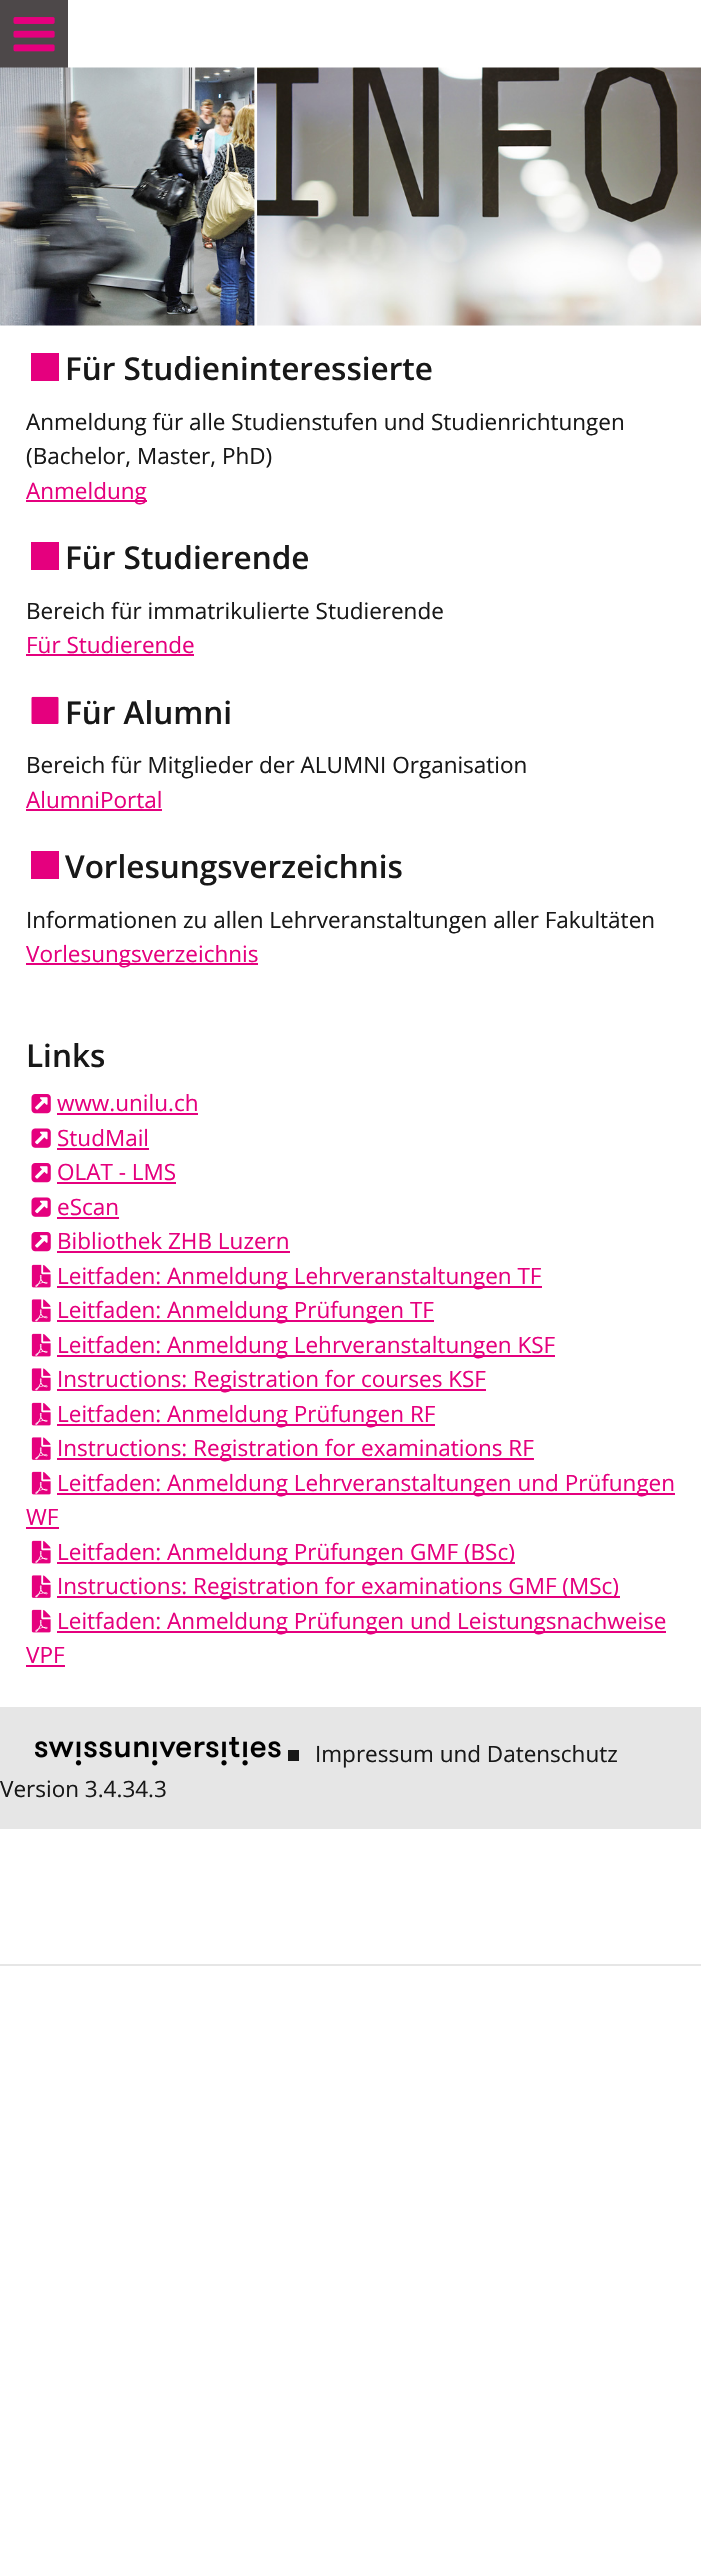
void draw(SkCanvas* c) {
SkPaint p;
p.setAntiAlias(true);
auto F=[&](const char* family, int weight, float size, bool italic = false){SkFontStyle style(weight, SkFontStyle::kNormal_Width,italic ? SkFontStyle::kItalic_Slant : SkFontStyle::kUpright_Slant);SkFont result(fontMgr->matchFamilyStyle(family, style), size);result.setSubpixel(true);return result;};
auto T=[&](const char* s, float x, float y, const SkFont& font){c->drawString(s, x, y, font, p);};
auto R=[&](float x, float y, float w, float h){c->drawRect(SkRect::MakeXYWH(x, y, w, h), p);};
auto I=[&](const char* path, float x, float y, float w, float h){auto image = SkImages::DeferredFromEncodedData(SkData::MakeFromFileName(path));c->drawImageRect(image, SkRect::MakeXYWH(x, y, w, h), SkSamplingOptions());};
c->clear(0xffffffff);
p.setColor(0xff4d4849);
R(0,0,68,68);
I("1.png",13,17,42,35);
I("2.png",0,67,701,259);
p.setColor(0xffe5007e);
R(31,353,28,28);
auto f1 = F("Open Sans",600,31.5);
p.setColor(0xff181818);
T("Für Studieninteressierte",65,380,f1);
auto f2 = F("Open Sans",400,22.5);
T("Anmeldung für alle Studienstufen und Studienrichtungen",26,430,f2);
T("(Bachelor, Master, PhD)",26,464,f2);
p.setColor(0xffe5007e);
R(26,500,121,2);
T("Anmeldung",26,499,f2);
R(31,542,28,28);
p.setColor(0xff181818);
T("Für Studierende",65,569,f1);
T("Bereich für immatrikulierte Studierende",26,619,f2);
p.setColor(0xffe5007e);
T("Für Studierende",26,653,f2);
R(26,654,168,2);
I("3.png",31,696,28,28);
p.setColor(0xff181818);
T("Für Alumni",65,724,f1);
T("Bereich für Mitglieder der ALUMNI Organisation",26,773,f2);
p.setColor(0xffe5007e);
T("AlumniPortal",26,808,f2);
R(26,809,136,2);
R(31,851,28,28);
p.setColor(0xff181818);
T("Vorlesungsverzeichnis",65,878,f1);
T("Informationen zu allen Lehrveranstaltungen aller Fakultäten",26,928,f2);
p.setColor(0xffe5007e);
R(26,963,232,2);
T("Vorlesungsverzeichnis",26,962,f2);
p.setColor(0xff181818);
T("Links",26,1067,f1);
I("4.png",31,1094,20,20);
p.setColor(0xffe5007e);
T("www.unilu.ch",57,1111,f2);
R(57,1113,141,2);
I("5.png",31,1128,20,20);
T("StudMail",57,1146,f2);
R(57,1148,92,2);
I("4.png",31,1163,20,20);
T("OLAT - LMS",57,1180,f2);
R(57,1182,119,2);
I("5.png",31,1197,20,20);
T("eScan",57,1215,f2);
R(57,1217,62,2);
I("4.png",31,1232,20,20);
T("Bibliothek ZHB Luzern",57,1249,f2);
R(57,1251,233,2);
I("6.png",31,1264,20,24);
R(57,1286,485,2);
T("Leitfaden: Anmeldung Lehrveranstaltungen TF",57,1284,f2);
I("7.png",31,1299,20,23);
R(57,1320,377,2);
T("Leitfaden: Anmeldung Prüfungen TF",57,1318,f2);
I("6.png",31,1333,20,24);
R(57,1355,498,2);
T("Leitfaden: Anmeldung Lehrveranstaltungen KSF",57,1353,f2);
I("7.png",31,1368,20,23);
R(57,1389,429,2);
T("Instructions: Registration for courses KSF",57,1387,f2);
I("6.png",31,1402,20,24);
R(57,1424,378,2);
T("Leitfaden: Anmeldung Prüfungen RF",57,1422,f2);
I("7.png",31,1437,20,23);
R(57,1458,477,2);
T("Instructions: Registration for examinations RF",57,1456,f2);
I("6.png",31,1471,20,24);
R(57,1493,618,2);
T("Leitfaden: Anmeldung Lehrveranstaltungen und Prüfungen",57,1491,f2);
T("WF",26,1525,f2);
R(26,1527,33,2);
I("6.png",31,1540,20,24);
R(57,1562,458,2);
T("Leitfaden: Anmeldung Prüfungen GMF (BSc)",57,1560,f2);
I("7.png",31,1575,20,23);
R(57,1596,563,2);
T("Instructions: Registration for examinations GMF (MSc)",57,1594,f2);
I("6.png",31,1609,20,24);
R(57,1631,609,2);
T("Leitfaden: Anmeldung Prüfungen und Leistungsnachweise",57,1629,f2);
T("VPF",26,1663,f2);
R(26,1665,39,2);
p.setColor(0xffe6e6e6);
R(0,1707,701,122);
I("8.png",34,1737,247,29);
p.setColor(0xff181818);
R(288,1750,11,11);
T("Impressum und Datenschutz",315,1762,f2);
T("Version 3.4.34.3",0,1797,f2);
p.setColor(0xffe6e6e6);
R(0,1964,701,2);
}
